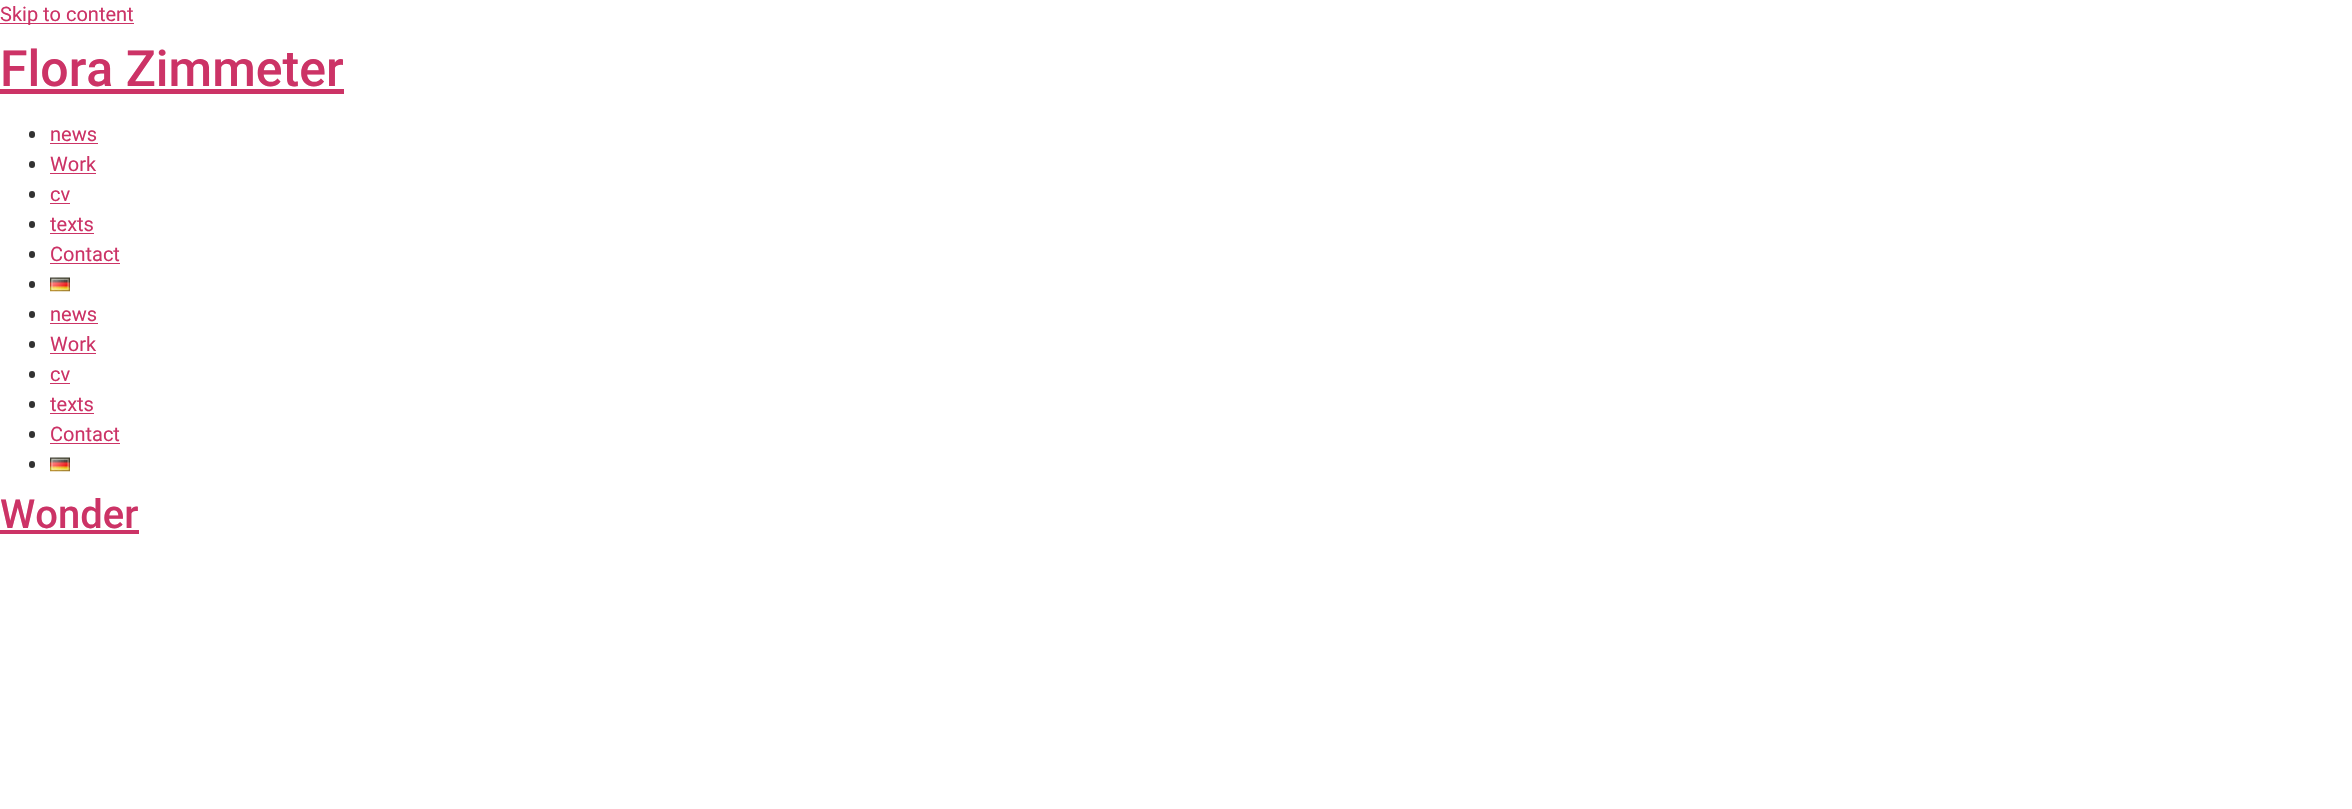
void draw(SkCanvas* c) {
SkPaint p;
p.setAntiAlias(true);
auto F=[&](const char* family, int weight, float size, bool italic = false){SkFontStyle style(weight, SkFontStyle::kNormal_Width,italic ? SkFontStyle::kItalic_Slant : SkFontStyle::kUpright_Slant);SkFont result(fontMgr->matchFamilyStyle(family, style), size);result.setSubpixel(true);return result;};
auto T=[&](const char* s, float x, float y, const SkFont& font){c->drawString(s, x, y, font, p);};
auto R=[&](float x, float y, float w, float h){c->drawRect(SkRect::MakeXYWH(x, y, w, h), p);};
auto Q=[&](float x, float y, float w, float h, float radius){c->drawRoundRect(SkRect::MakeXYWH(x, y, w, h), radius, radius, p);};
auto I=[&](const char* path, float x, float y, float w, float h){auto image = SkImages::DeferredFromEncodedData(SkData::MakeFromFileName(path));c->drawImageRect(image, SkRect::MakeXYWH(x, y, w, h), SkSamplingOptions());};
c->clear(0xffffffff);
p.setColor(0xffcc3366);
R(0,23,134,1);
auto f1 = F("Roboto",400,20);
T("Skip to content",0,21,f1);
auto f2 = F("Roboto",500,50);
T("Flora Zimmeter",0,86,f2);
R(0,89,344,5);
p.setColor(0xff333333);
Q(29,131,6,7,3);
p.setColor(0xffcc3366);
T("news",50,141,f1);
R(50,143,48,1);
p.setColor(0xff333333);
Q(29,161,6,7,3);
p.setColor(0xffcc3366);
T("Work",50,171,f1);
R(50,173,46,1);
p.setColor(0xff333333);
Q(29,191,6,7,3);
p.setColor(0xffcc3366);
T("cv",50,201,f1);
R(50,203,20,1);
p.setColor(0xff333333);
Q(29,221,6,7,3);
p.setColor(0xffcc3366);
T("texts",50,231,f1);
R(50,233,44,1);
p.setColor(0xff333333);
Q(29,251,6,7,3);
p.setColor(0xffcc3366);
T("Contact",50,261,f1);
R(50,263,70,1);
p.setColor(0xff333333);
Q(29,281,6,7,3);
I("1.png",50,277,20,15);
Q(29,311,6,7,3);
p.setColor(0xffcc3366);
T("news",50,321,f1);
R(50,323,48,1);
p.setColor(0xff333333);
Q(29,341,6,7,3);
p.setColor(0xffcc3366);
T("Work",50,351,f1);
R(50,353,46,1);
p.setColor(0xff333333);
Q(29,371,6,7,3);
p.setColor(0xffcc3366);
T("cv",50,381,f1);
R(50,383,20,1);
p.setColor(0xff333333);
Q(29,401,6,7,3);
p.setColor(0xffcc3366);
T("texts",50,411,f1);
R(50,413,44,1);
p.setColor(0xff333333);
Q(29,431,6,7,3);
p.setColor(0xffcc3366);
T("Contact",50,441,f1);
R(50,443,70,1);
p.setColor(0xff333333);
Q(29,461,6,7,3);
I("1.png",50,457,20,15);
auto f3 = F("Roboto",500,40);
p.setColor(0xffcc3366);
T("Wonder",0,528,f3);
R(0,530,139,4);
}
